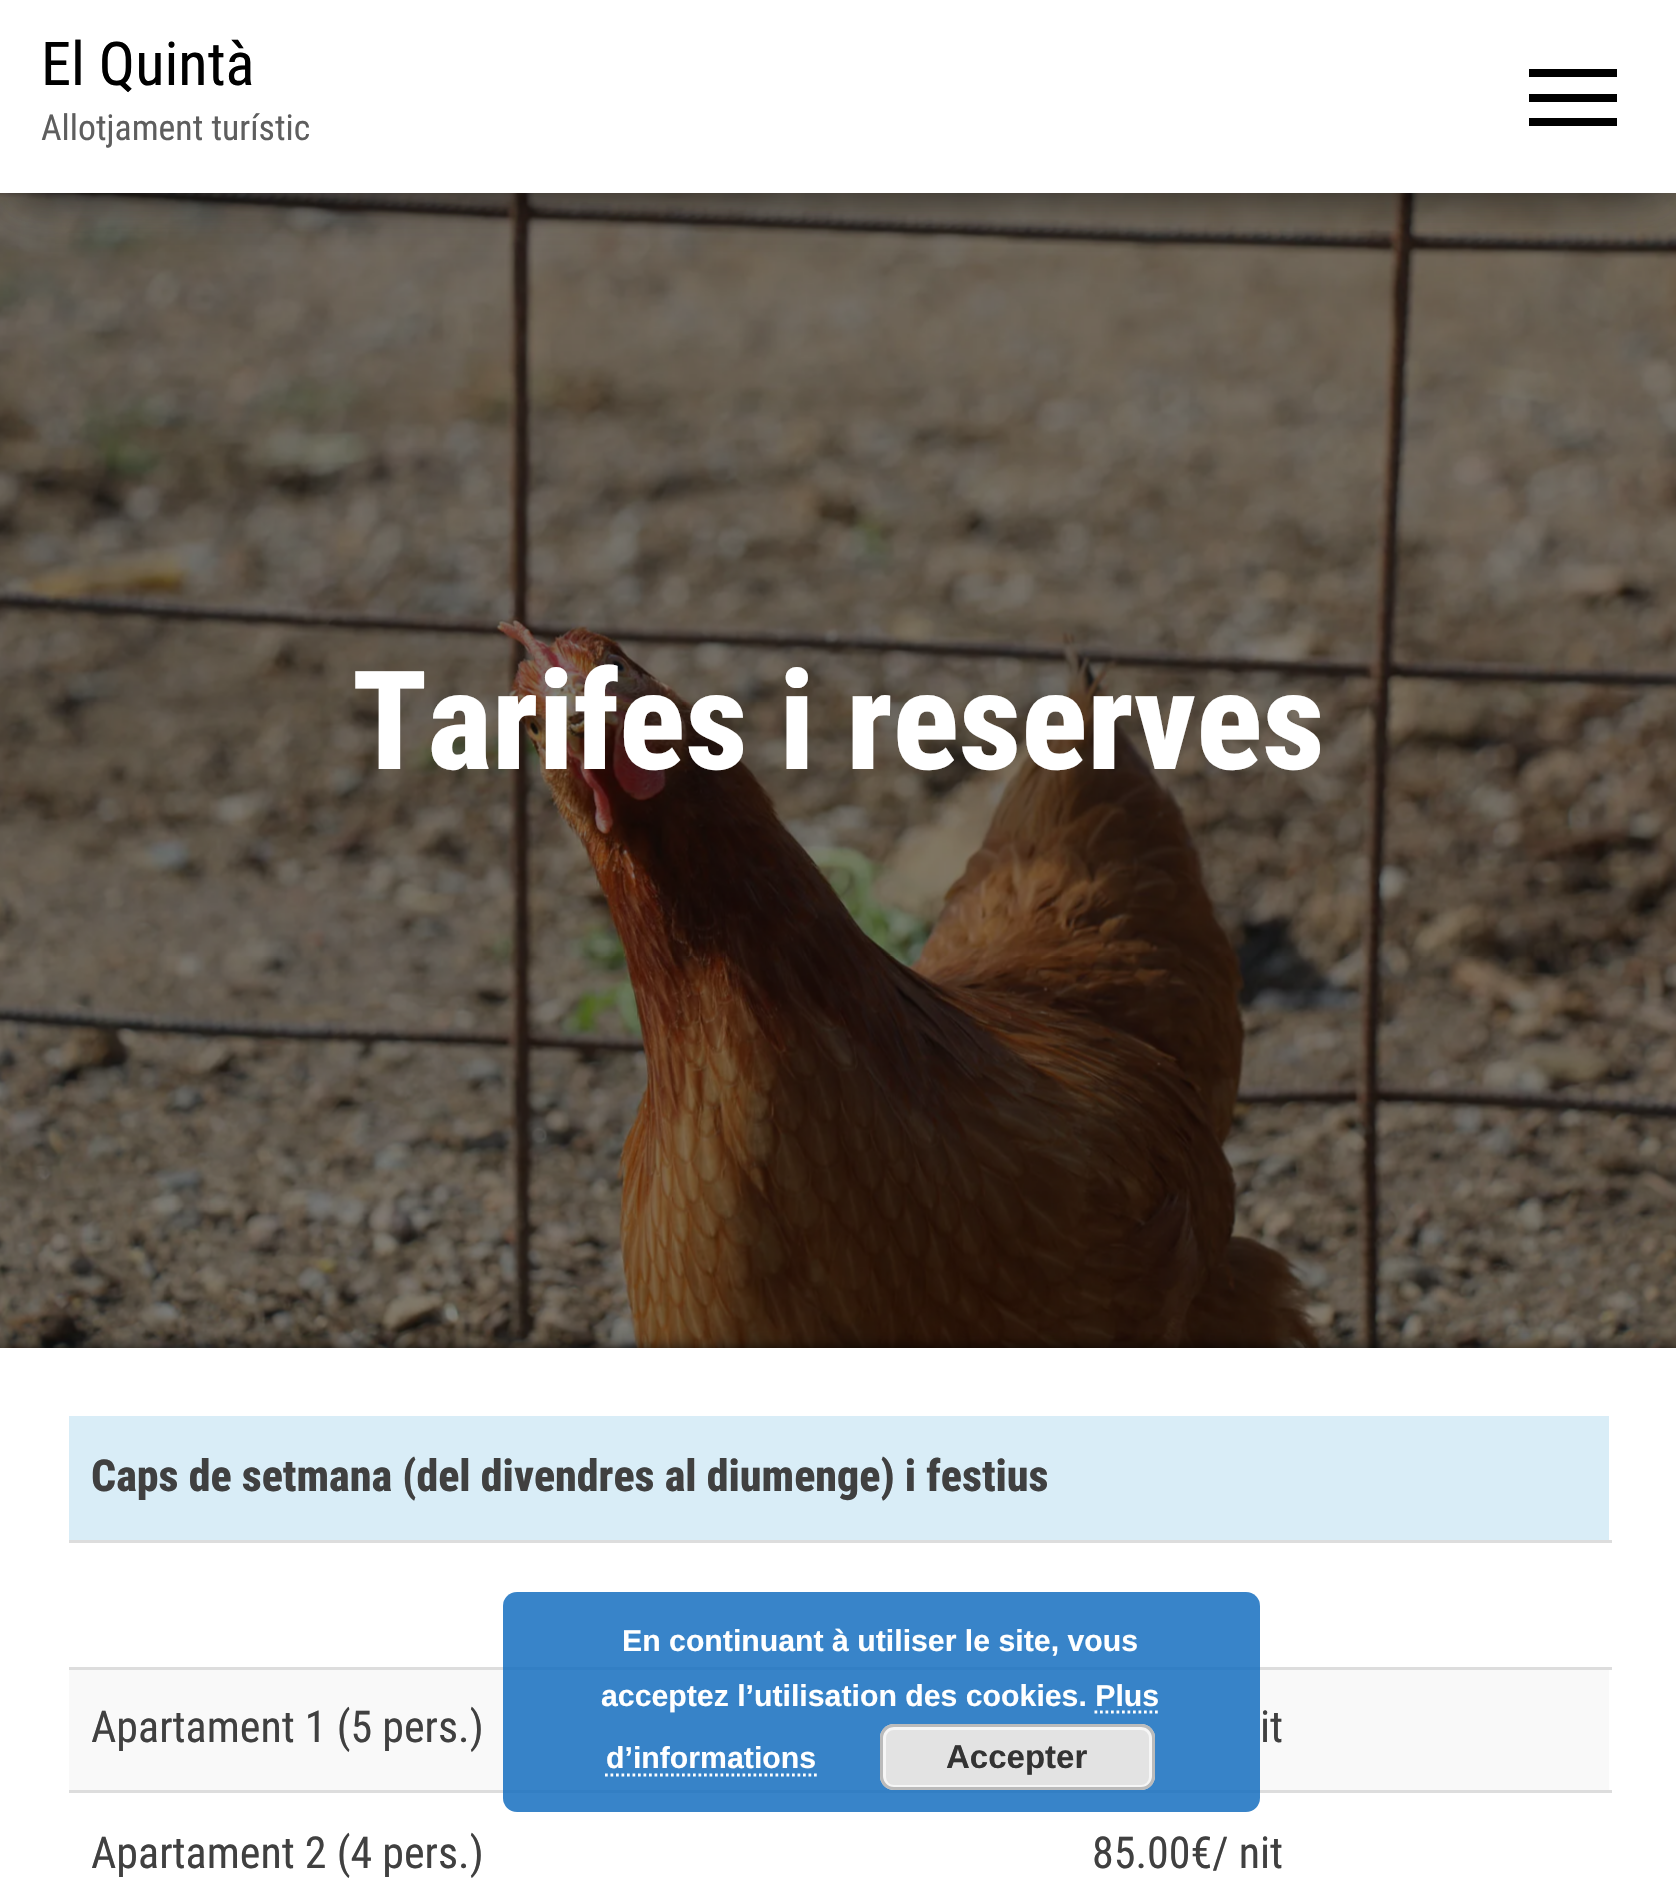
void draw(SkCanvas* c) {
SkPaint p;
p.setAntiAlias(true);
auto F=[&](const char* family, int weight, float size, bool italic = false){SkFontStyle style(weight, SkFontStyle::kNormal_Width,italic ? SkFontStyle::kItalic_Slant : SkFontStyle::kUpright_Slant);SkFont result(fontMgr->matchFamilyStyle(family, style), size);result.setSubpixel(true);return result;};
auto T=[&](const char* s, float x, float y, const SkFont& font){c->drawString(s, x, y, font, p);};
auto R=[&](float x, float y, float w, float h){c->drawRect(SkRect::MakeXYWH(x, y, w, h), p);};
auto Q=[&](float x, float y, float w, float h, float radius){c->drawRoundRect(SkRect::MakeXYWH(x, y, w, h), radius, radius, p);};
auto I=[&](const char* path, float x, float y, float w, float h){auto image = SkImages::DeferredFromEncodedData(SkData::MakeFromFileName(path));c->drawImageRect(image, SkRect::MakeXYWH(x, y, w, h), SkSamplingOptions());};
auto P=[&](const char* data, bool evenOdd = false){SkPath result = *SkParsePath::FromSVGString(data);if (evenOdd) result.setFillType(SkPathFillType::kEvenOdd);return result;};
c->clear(0xffffffff);
I("1.png",0,193,1676,1155);
p.setColor(0x80000000);
R(0,193,1676,1155);
p.setColor(0x33000000);
p.setMaskFilter(SkMaskFilter::MakeBlur(kNormal_SkBlurStyle, 14));
c->drawRect(SkRect::MakeXYWH(14,36,1650,165),p);
p.setMaskFilter(nullptr);
p.setColor(0x1f000000);
p.setMaskFilter(SkMaskFilter::MakeBlur(kNormal_SkBlurStyle, 27.5));
c->drawRect(SkRect::MakeXYWH(0,8,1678,193),p);
p.setMaskFilter(nullptr);
p.setColor(0x6b000000);
p.setMaskFilter(SkMaskFilter::MakeBlur(kNormal_SkBlurStyle, 27.5));
c->drawRect(SkRect::MakeXYWH(33,61,1612,126),p);
p.setMaskFilter(nullptr);
p.setColor(0xffffffff);
R(0,0,1676,193);
auto f1 = F("Roboto Condensed",400,60.5);
p.setColor(0xff000000);
T("El Quintà",41,85,f1);
auto f2 = F("Roboto Condensed",400,35.75);
p.setColor(0xff5e5e5e);
T("Allotjament turístic",41,140,f2);
p.setColor(0xff000000);
R(1529,69,88,8);
R(1529,94,88,8);
R(1529,118,88,8);
auto f3 = F("Roboto Condensed",800,137.5);
p.setColor(0xffffffff);
T("Tarifes i reserves",352,769,f3);
p.setColor(0xbf000000);
p.setMaskFilter(SkMaskFilter::MakeBlur(kNormal_SkBlurStyle, 7));
c->drawRect(SkRect::MakeXYWH(0,1348,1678,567),p);
p.setMaskFilter(nullptr);
p.setColor(0xffffffff);
R(0,1348,1676,546);
p.setColor(0xffd9edf7);
R(69,1416,1540,124);
p.setColor(0xffdddddd);
R(69,1540,1543,3);
auto f4 = F("Roboto Condensed",800,44);
p.setColor(0xff404040);
T("Caps de setmana (del divendres al diumenge) i festius",91,1491,f4);
p.setColor(0xfff9f9f9);
R(69,1670,1540,120);
auto f5 = F("Roboto Condensed",400,44);
p.setColor(0xff404040);
T("Apartament 1 (5 pers.)",91,1742,f5);
p.setColor(0xffdddddd);
R(69,1667,1543,3);
p.setColor(0xff404040);
T("it",1260,1742,f5);
T("Apartament 2 (4 pers.)",91,1868,f5);
p.setColor(0xffdddddd);
R(69,1790,1543,3);
p.setColor(0xff404040);
T("85.00€/ nit",1092,1868,f5);
p.setColor(0xd9156fbf);
Q(503,1592,757,220,14);
auto f6 = F("Liberation Sans",700,30.25);
p.setColor(0xffffffff);
T("En continuant à utiliser le site, vous",622,1651,f6);
T("acceptez l’utilisation des cookies. Plus",601,1706,f6);
T("d’informations",606,1768,f6);
p.setStroke(true);
p.setStrokeWidth(2.8);
p.setPathEffect(SkDashPathEffect::Make({{2.75f,2.75f}}, 0));
c->drawPath(P("M1094.5 1712h63.5"),p);
p.setPathEffect(nullptr);
p.setPathEffect(SkDashPathEffect::Make({{2.75f,2.75f}}, 0));
c->drawPath(P("M605 1775h212"),p);
p.setPathEffect(nullptr);
p.setStroke(false);
p.setColor(0xffe3e3e3);
Q(880,1724,275,66,14);
p.setStroke(true);
p.setStrokeWidth(3);
p.setColor(0xfff6f6f6);
c->drawRoundRect(SkRect::MakeXYWH(884.5,1728.5,266,58),9.5,9.5,p);
p.setColor(0xffbbbbbb);
c->drawRoundRect(SkRect::MakeXYWH(881.5,1725.5,272,63),12.5,12.5,p);
auto f7 = F("Liberation Sans",700,33);
p.setStroke(false);
p.setColor(0xff333333);
T("Accepter",946,1768,f7);
}
